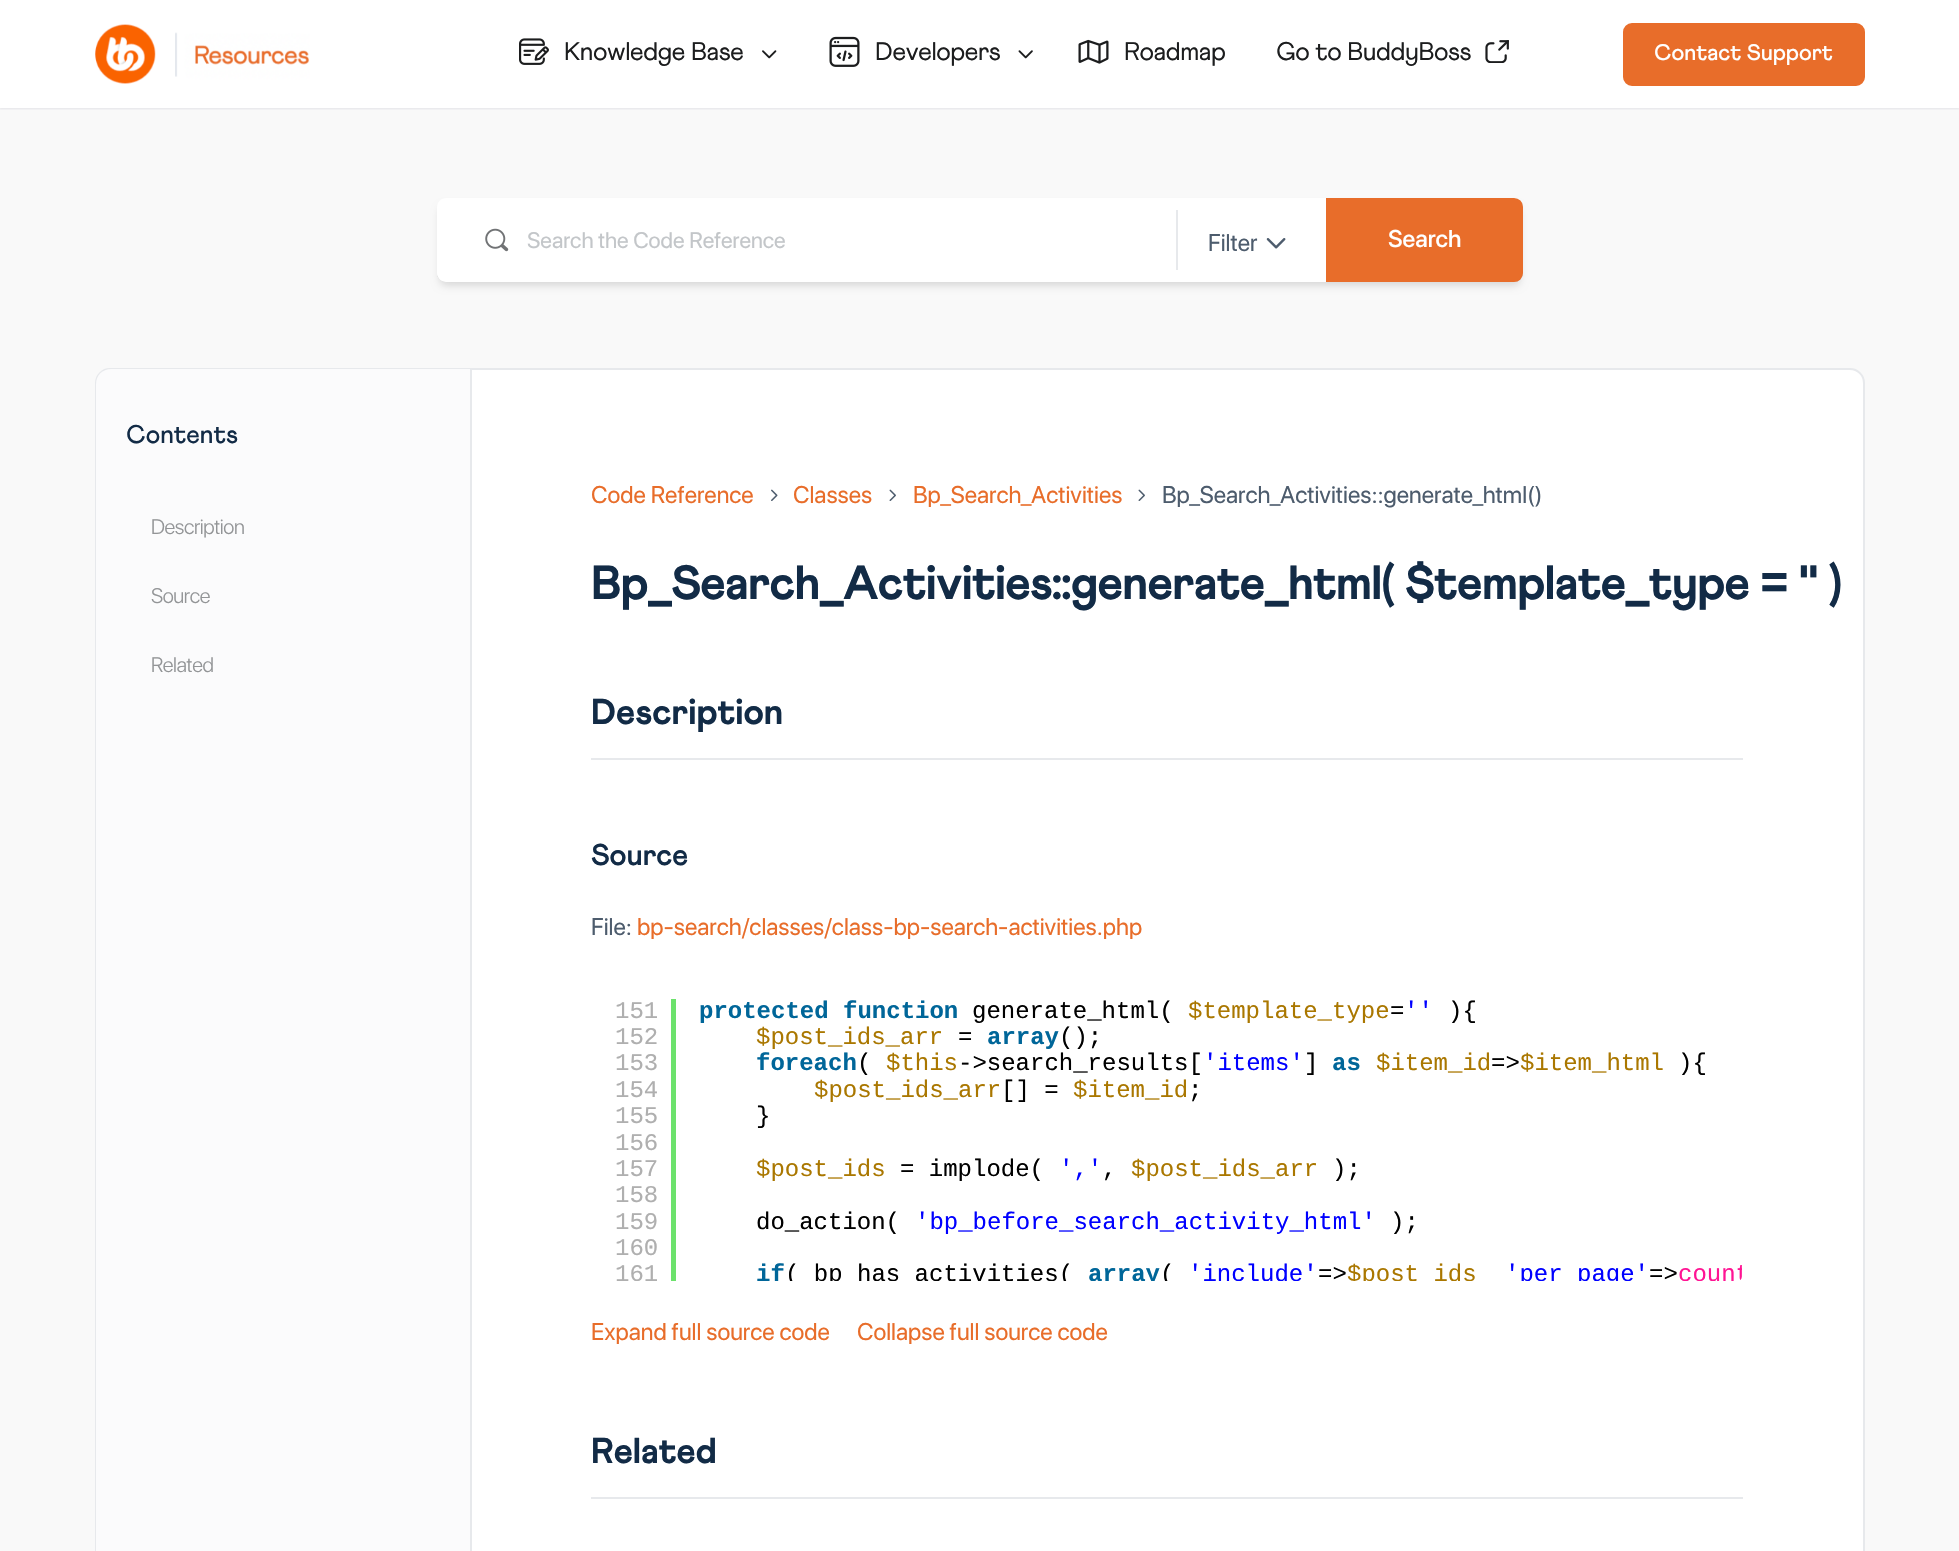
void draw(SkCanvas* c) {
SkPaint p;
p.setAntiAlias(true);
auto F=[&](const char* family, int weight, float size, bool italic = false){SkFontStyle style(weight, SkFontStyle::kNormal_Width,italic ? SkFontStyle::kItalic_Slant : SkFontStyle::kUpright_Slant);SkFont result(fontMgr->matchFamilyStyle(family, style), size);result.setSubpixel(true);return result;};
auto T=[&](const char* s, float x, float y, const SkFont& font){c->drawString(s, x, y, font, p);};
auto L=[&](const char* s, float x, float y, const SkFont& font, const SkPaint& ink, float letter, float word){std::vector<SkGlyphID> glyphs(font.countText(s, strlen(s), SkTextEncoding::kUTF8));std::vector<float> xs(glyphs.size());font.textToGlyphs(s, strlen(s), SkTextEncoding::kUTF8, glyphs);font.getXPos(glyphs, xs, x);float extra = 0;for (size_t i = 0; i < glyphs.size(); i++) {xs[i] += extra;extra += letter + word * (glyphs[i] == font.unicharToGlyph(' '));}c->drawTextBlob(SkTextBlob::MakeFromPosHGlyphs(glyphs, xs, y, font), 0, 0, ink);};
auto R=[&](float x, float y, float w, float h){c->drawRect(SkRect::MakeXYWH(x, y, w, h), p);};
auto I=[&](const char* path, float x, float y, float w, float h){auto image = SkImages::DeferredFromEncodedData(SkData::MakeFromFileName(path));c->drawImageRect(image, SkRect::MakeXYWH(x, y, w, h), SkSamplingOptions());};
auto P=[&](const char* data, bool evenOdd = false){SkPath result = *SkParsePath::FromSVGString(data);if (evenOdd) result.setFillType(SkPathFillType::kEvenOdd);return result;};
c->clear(0xfff9f9f9);
p.setColor(0x2641476c);
p.setMaskFilter(SkMaskFilter::MakeBlur(kNormal_SkBlurStyle, 1));
c->drawRect(SkRect::MakeXYWH(0,0,1959,108),p);
p.setMaskFilter(nullptr);
p.setColor(0x0d8b8d9d);
R(0,108,1959,2);
p.setColor(0xffffffff);
R(0,0,1959,108);
I("1.png",95,24,215,60);
I("2.png",519,38,30,27);
auto f1 = F("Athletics",400,25.5);
p.setColor(0xff1c1d1e);
L("Knowledge Base",564,60,f1,p,-.4,0);
I("3.png",762,50,15,9);
I("4.png",829,36,31,31);
L("Developers",875,60,f1,p,-.4,0);
I("5.png",1018,50,15,9);
I("6.png",1078,39,31,25);
L("Roadmap",1124,60,f1,p,-.4,0);
L("Go to BuddyBoss",1276,60,f1,p,-.4,0);
I("7.png",1485,40,24,23);
p.setColor(0xffe86d2a);
c->drawRoundRect(SkRect::MakeXYWH(1624,24,240,61),8,8,p);
p.setStroke(true);
p.setStrokeWidth(2);
c->drawRoundRect(SkRect::MakeXYWH(1624,24,240,61),8,8,p);
auto f2 = F("Athletics",500,22.5);
p.setStroke(false);
p.setColor(0xffffffff);
T("Contact Support",1654,60,f2);
p.setColor(0x26000000);
p.setMaskFilter(SkMaskFilter::MakeBlur(kNormal_SkBlurStyle, 4.5));
c->drawRoundRect(SkRect::MakeXYWH(440,207,1080,78),6,6,p);
p.setMaskFilter(nullptr);
p.setColor(0xffcecece);
c->drawPath(P("M437 275c1 4 5 7 9 7h1068c5 0 9-4 9-9v-66c0-2-1-4-1-5v3v66c0 5-4 9-8 9h-1068c-3 0-7-2-9-5z"),p);
p.setColor(0xffffffff);
c->drawPath(P("M446 198h730v84h-730c-5 0-9-4-9-9v-66c0-5 4-9 9-9z"),p);
I("8.png",485,228,24,24);
auto f3 = F("SF Pro Display",400,22.5);
p.setColor(0xffc3c6c9);
T("Search the Code Reference",527,248,f3);
p.setColor(0xffffffff);
R(1176,198,150,84);
p.setColor(0xffe7e9ec);
R(1176,210,2,60);
auto f4 = F("SF Pro Display",400,24);
p.setColor(0xff4d5c6d);
T("Filter",1208,251,f4);
I("9.png",1266,238,20,11);
p.setColor(0xffe86d2a);
c->drawPath(P("M1327 199h187c4.5 0 8 3.5 8 8v66c0 4.5-3.5 8-8 8h-187z"),p);
p.setStroke(true);
c->drawPath(P("M1327 199h187c4.5 0 8 3.5 8 8v66c0 4.5-3.5 8-8 8h-187z"),p);
auto f5 = F("SF Pro Display",500,24);
p.setStroke(false);
p.setColor(0xffffffff);
T("Search",1388,247,f5);
c->drawRoundRect(SkRect::MakeXYWH(96,369,1768,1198),14,14,p);
p.setStroke(true);
p.setColor(0xffe7e9ec);
c->drawRoundRect(SkRect::MakeXYWH(96,369,1768,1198),14,14,p);
p.setStroke(false);
p.setColor(0xfffbfbfc);
c->drawPath(P("M111 369h360v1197h-360c-8.5 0-15-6.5-15-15v-1167c0-8.5 6.5-15 15-15z"),p);
p.setColor(0xffe7e9ec);
R(470,369,2,1182);
auto f6 = F("Athletics",500,25.5);
p.setColor(0xff122b46);
T("Contents",126,443,f6);
auto f7 = F("SF Pro Display",300,21);
p.setColor(0xff939597);
L("Description",151,534,f7,p,-.4,0);
L("Source",151,603,f7,p,-.4,0);
L("Related",151,672,f7,p,-.4,0);
p.setColor(0xffe86d2a);
T("Code Reference",591,503,f4);
I("10.png",771,489,7,12);
T("Classes",793,503,f4);
I("11.png",889,489,7,12);
T("Bp_Search_Activities",913,503,f4);
I("11.png",1138,489,7,12);
p.setColor(0xff4d5c6d);
T("Bp_Search_Activities::generate_html()",1162,503,f4);
auto f8 = F("Athletics",800,48);
p.setColor(0xff122b46);
L("Bp_Search_Activities::generate_html( $template_type = '' )",591,599,f8,p,-.72,0);
p.setColor(0xffe7e9ec);
R(591,758,1152,2);
auto f9 = F("Athletics",800,36);
p.setColor(0xff122b46);
T("Description",591,724,f9);
auto f10 = F("Athletics",700,30);
T("Source",591,865,f10);
p.setColor(0xff4d5c6d);
T("File:",591,935,f4);
p.setColor(0xffe86d2a);
T("bp-search/classes/class-bp-search-activities.php",637,935,f4);
p.setColor(0xff6ce26c);
R(671,999,5,282);
auto f11 = F("Liberation Mono",400,24);
p.setColor(0xffafafaf);
T("151",615,1018,f11);
T("152",615,1044,f11);
T("153",615,1070,f11);
T("154",615,1097,f11);
T("155",615,1123,f11);
T("156",615,1150,f11);
T("157",615,1176,f11);
T("158",615,1202,f11);
T("159",615,1229,f11);
T("160",615,1255,f11);
c->save();
c->clipPath(P("M596 987h1141c3 0 5 2 5 5v284c0 3-2 5-5 5h-1141c-3 0-5-2-5-5v-284c0-3 2-5 5-5z"),true);
T("161",615,1281,f11);
c->restore();
auto f12 = F("Liberation Mono",700,24);
p.setColor(0xff006699);
T("protected function",699,1018,f12);
p.setColor(0xff000000);
T("generate_html(",972,1018,f11);
p.setColor(0xffaa7700);
T("$template_type",1188,1018,f11);
p.setColor(0xff000000);
T("=",1390,1018,f11);
p.setColor(0xff0000ff);
T("''",1404,1018,f11);
p.setColor(0xff000000);
T("){",1448,1018,f11);
p.setColor(0xffaa7700);
T("$post_ids_arr",756,1044,f11);
p.setColor(0xff000000);
T("=",958,1044,f11);
p.setColor(0xff006699);
T("array",987,1044,f12);
p.setColor(0xff000000);
T("();",1059,1044,f11);
p.setColor(0xff006699);
T("foreach",756,1070,f12);
p.setColor(0xff000000);
T("(",857,1070,f11);
p.setColor(0xffaa7700);
T("$this",886,1070,f11);
p.setColor(0xff000000);
T("->search_results[",958,1070,f11);
p.setColor(0xff0000ff);
T("'items'",1203,1070,f11);
p.setColor(0xff000000);
T("]",1304,1070,f11);
p.setColor(0xff006699);
T("as",1332,1070,f12);
p.setColor(0xffaa7700);
T("$item_id",1376,1070,f11);
p.setColor(0xff000000);
T("=>",1491,1070,f11);
p.setColor(0xffaa7700);
T("$item_html",1520,1070,f11);
p.setColor(0xff000000);
T("){",1678,1070,f11);
p.setColor(0xffaa7700);
T("$post_ids_arr",814,1097,f11);
p.setColor(0xff000000);
T("[] =",1001,1097,f11);
p.setColor(0xffaa7700);
T("$item_id",1073,1097,f11);
p.setColor(0xff000000);
T(";",1188,1097,f11);
T("}",756,1123,f11);
p.setColor(0xffaa7700);
T("$post_ids",756,1176,f11);
p.setColor(0xff000000);
T("= implode(",900,1176,f11);
p.setColor(0xff0000ff);
T("','",1059,1176,f11);
p.setColor(0xff000000);
T(",",1102,1176,f11);
p.setColor(0xffaa7700);
T("$post_ids_arr",1131,1176,f11);
p.setColor(0xff000000);
T(");",1332,1176,f11);
T("do_action(",756,1229,f11);
p.setColor(0xff0000ff);
T("'bp_before_search_activity_html'",915,1229,f11);
p.setColor(0xff000000);
T(");",1390,1229,f11);
p.setColor(0xff006699);
T("if",756,1281,f12);
c->save();
c->clipPath(P("M596 987h1141c3 0 5 2 5 5v284c0 3-2 5-5 5h-1141c-3 0-5-2-5-5v-284c0-3 2-5 5-5z"),true);
p.setColor(0xff000000);
T("( bp_has_activities(",785,1281,f11);
p.setColor(0xff006699);
T("array",1088,1281,f12);
p.setColor(0xff000000);
T("(",1160,1281,f11);
p.setColor(0xff0000ff);
T("'include'",1188,1281,f11);
c->restore();
p.setColor(0xff000000);
T("=>",1318,1281,f11);
c->save();
c->clipPath(P("M596 987h1141c3 0 5 2 5 5v284c0 3-2 5-5 5h-1141c-3 0-5-2-5-5v-284c0-3 2-5 5-5z"),true);
p.setColor(0xffaa7700);
T("$post_ids",1347,1281,f11);
p.setColor(0xff0000ff);
T("'per_page'",1505,1281,f11);
c->restore();
p.setColor(0xff000000);
T("=>",1649,1281,f11);
c->save();
c->clipPath(P("M596 987h1141c3 0 5 2 5 5v284c0 3-2 5-5 5h-1141c-3 0-5-2-5-5v-284c0-3 2-5 5-5z"),true);
p.setColor(0xffff1493);
T("count",1678,1281,f11);
c->restore();
p.setColor(0xffe86d2a);
T("Expand full source code",591,1340,f4);
T("Collapse full source code",857,1340,f4);
p.setColor(0xffe7e9ec);
R(591,1497,1152,2);
p.setColor(0xff122b46);
T("Related",591,1463,f9);
}
